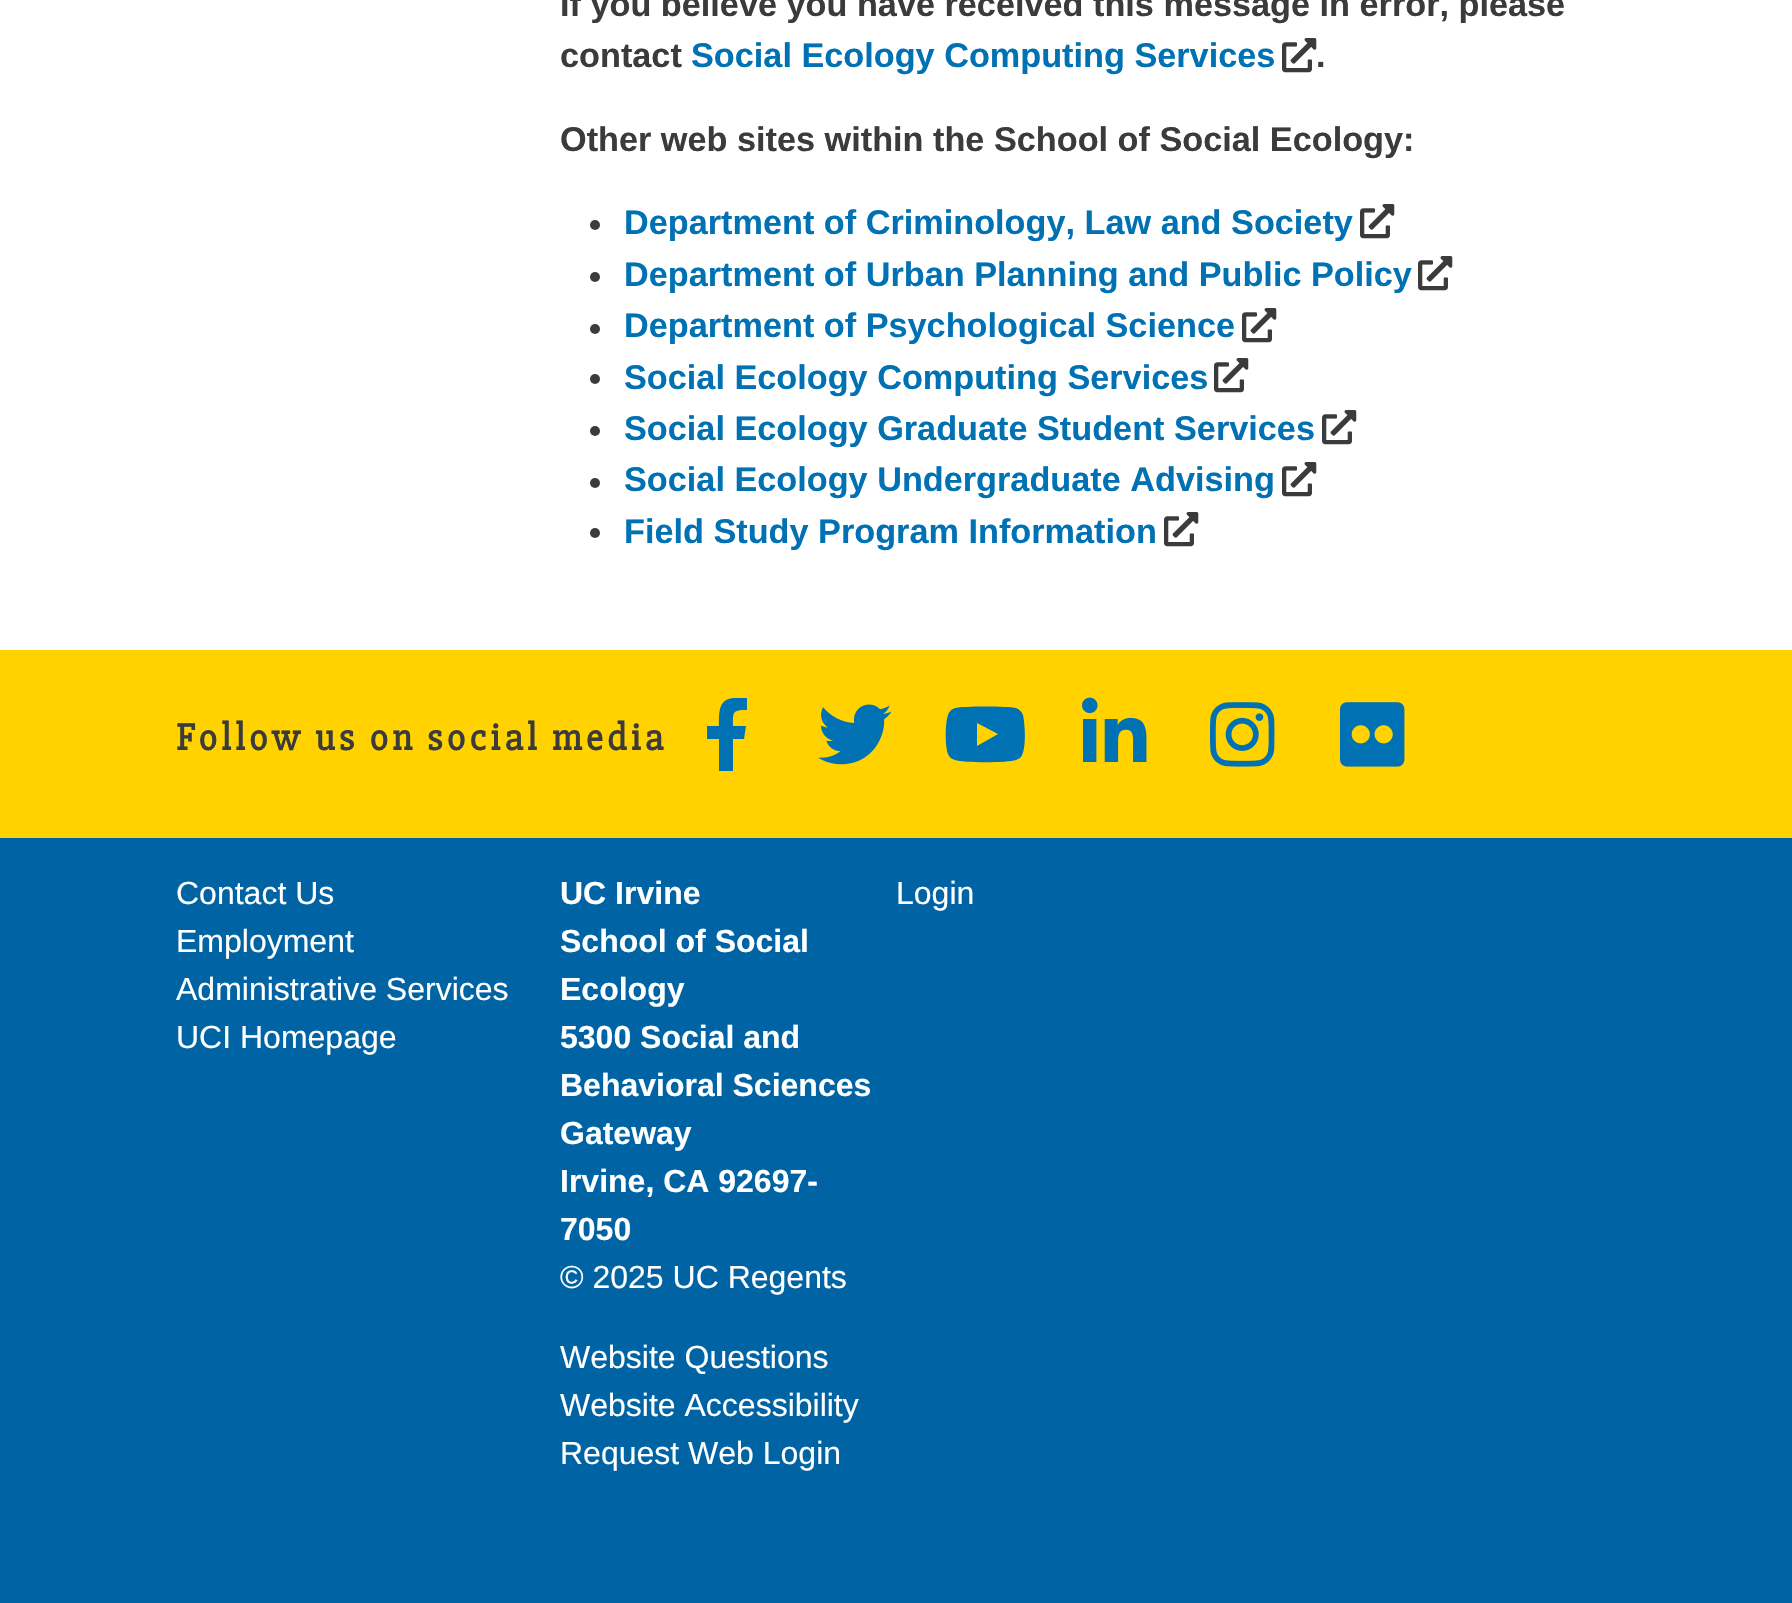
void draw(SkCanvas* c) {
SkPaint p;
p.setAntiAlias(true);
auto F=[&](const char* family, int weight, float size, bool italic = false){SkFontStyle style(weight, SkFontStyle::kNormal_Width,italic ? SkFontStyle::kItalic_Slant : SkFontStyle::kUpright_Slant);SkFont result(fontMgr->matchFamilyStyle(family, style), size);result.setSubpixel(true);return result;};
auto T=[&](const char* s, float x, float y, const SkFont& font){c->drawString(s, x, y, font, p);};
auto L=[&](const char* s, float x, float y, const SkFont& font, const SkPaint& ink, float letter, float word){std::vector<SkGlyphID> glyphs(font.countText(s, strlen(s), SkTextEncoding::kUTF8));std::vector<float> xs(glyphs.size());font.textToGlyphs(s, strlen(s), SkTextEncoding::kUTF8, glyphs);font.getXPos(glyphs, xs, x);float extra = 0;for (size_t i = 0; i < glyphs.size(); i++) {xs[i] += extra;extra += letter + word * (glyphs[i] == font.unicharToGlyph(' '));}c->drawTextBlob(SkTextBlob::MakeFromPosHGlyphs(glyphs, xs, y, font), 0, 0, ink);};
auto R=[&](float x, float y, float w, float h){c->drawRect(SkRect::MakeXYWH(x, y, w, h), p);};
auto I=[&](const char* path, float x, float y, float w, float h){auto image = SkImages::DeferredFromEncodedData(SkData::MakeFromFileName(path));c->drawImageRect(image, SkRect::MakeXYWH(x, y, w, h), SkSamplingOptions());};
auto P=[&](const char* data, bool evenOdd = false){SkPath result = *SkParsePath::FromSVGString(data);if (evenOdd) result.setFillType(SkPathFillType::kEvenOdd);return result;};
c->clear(0xffffffff);
auto f1 = F("Liberation Sans",700,34.25);
p.setColor(0xff3b3b3b);
T("If you believe you have received this message in error, please",560,16,f1);
T("contact",560,67,f1);
p.setColor(0xff0071b3);
T("Social Ecology Computing Services",691,67,f1);
I("1.png",1282,38,35,35);
p.setColor(0xff3b3b3b);
T(".",1316,67,f1);
T("Other web sites within the School of Social Ecology:",560,151,f1);
c->drawCircle(595,225,5,p);
p.setColor(0xff0071b3);
T("Department of Criminology, Law and Society",624,234,f1);
I("1.png",1360,204,35,35);
p.setColor(0xff3b3b3b);
c->drawCircle(595,277,5,p);
p.setColor(0xff0071b3);
T("Department of Urban Planning and Public Policy",624,286,f1);
I("1.png",1418,256,35,35);
p.setColor(0xff3b3b3b);
c->drawCircle(595,329,5,p);
p.setColor(0xff0071b3);
T("Department of Psychological Science",624,337,f1);
I("1.png",1242,308,35,35);
p.setColor(0xff3b3b3b);
c->drawCircle(595,379,5,p);
p.setColor(0xff0071b3);
T("Social Ecology Computing Services",624,389,f1);
I("1.png",1214,358,35,35);
p.setColor(0xff3b3b3b);
c->drawCircle(595,431,5,p);
p.setColor(0xff0071b3);
T("Social Ecology Graduate Student Services",624,440,f1);
I("1.png",1322,410,35,35);
p.setColor(0xff3b3b3b);
c->drawCircle(595,483,5,p);
p.setColor(0xff0071b3);
T("Social Ecology Undergraduate Advising",624,491,f1);
I("1.png",1282,462,35,35);
p.setColor(0xff3b3b3b);
c->drawCircle(595,533,5,p);
p.setColor(0xff0071b3);
T("Field Study Program Information",624,543,f1);
I("1.png",1164,512,35,35);
p.setColor(0xffffd200);
R(0,650,1792,188);
auto f2 = F("Slabo 27px",700,38.4);
p.setColor(0xff3b3b3b);
L("Follow us on social media",176,750,f2,p,4,0);
p.setColor(0xff0071b3);
c->drawPath(P("M744 739l2-13h-13c0-14-1-16 14-16v-12h-13c-16 1-15 15-15 28h-12v13h12v32h14v-32z"),p);
I("2.png",818,704,74,61);
c->drawPath(P("M1023 715c-1-3-4-6-7-7c-8-2-53-2-61 0l-4 2c-1 2-3 3-3 5c-3 8-3 31 0 39c1 3 3 5 7 6c8 3 53 3 61 0l4-2c7-6 5-34 3-43zm-46 31v-23l21 11z"),p);
I("3.png",1082,697,65,65);
I("4.png",1210,702,65,65);
I("5.png",1340,702,65,65);
p.setColor(0xff0064a4);
R(0,838,1792,765);
auto f3 = F("Liberation Sans",400,32);
p.setColor(0xffffffff);
T("Contact Us",176,904,f3);
T("Employment",176,952,f3);
T("Administrative Services",176,1000,f3);
T("UCI Homepage",176,1048,f3);
auto f4 = F("Liberation Sans",700,32);
T("UC Irvine",560,904,f4);
T("School of Social",560,952,f4);
T("Ecology",560,1000,f4);
T("5300 Social and",560,1048,f4);
T("Behavioral Sciences",560,1096,f4);
T("Gateway",560,1144,f4);
T("Irvine, CA 92697-",560,1192,f4);
T("7050",560,1240,f4);
T("© 2025 UC Regents",560,1288,f3);
T("Website Questions",560,1368,f3);
T("Website Accessibility",560,1416,f3);
T("Request Web Login",560,1464,f3);
T("Login",896,904,f3);
}
